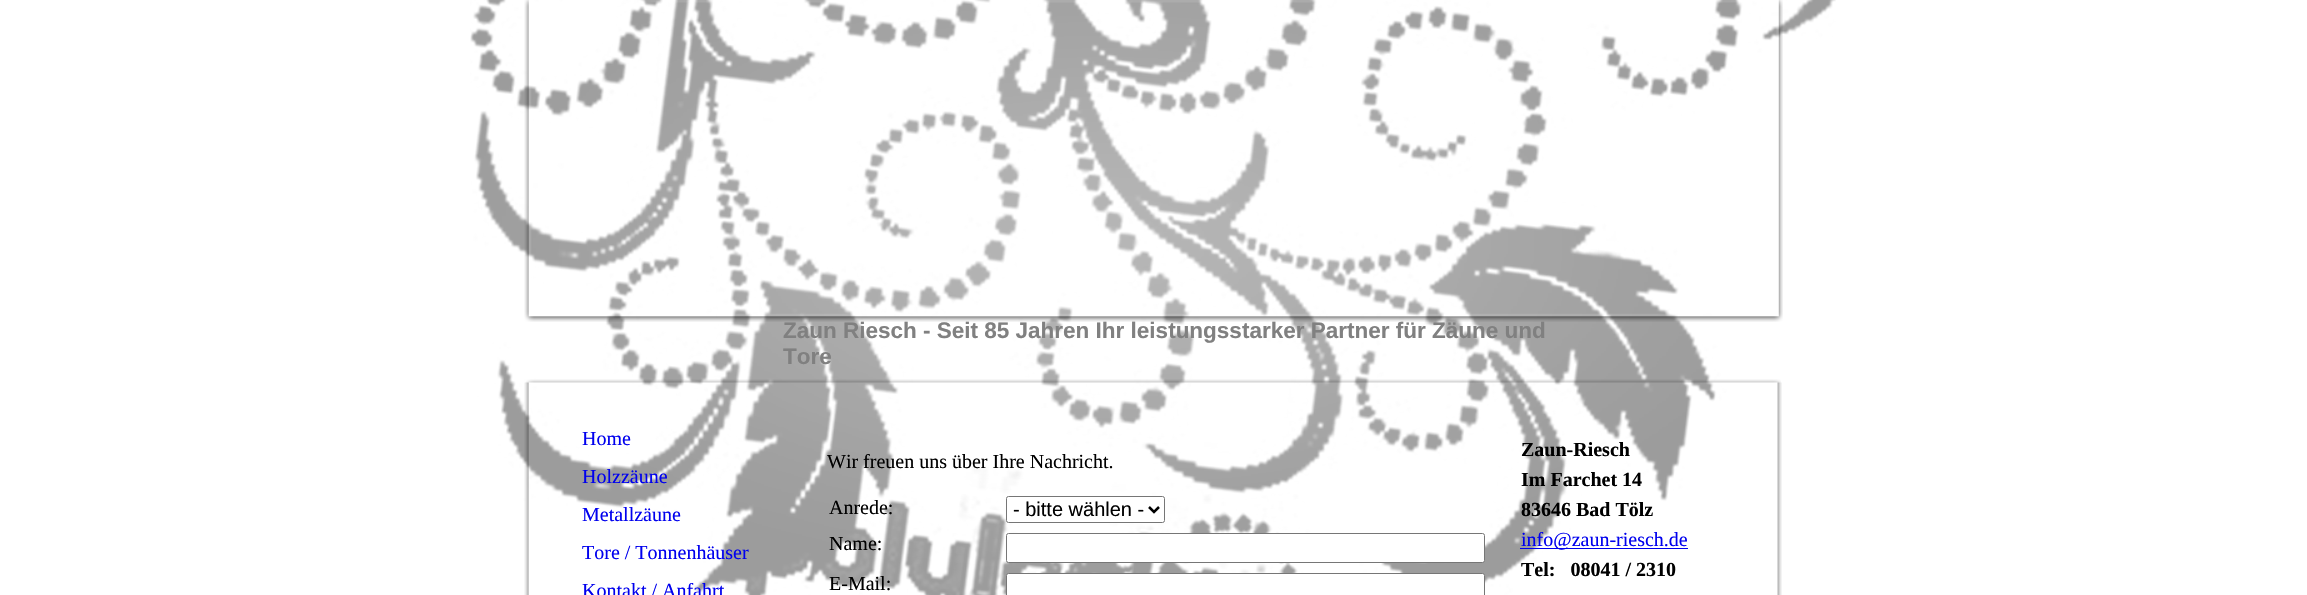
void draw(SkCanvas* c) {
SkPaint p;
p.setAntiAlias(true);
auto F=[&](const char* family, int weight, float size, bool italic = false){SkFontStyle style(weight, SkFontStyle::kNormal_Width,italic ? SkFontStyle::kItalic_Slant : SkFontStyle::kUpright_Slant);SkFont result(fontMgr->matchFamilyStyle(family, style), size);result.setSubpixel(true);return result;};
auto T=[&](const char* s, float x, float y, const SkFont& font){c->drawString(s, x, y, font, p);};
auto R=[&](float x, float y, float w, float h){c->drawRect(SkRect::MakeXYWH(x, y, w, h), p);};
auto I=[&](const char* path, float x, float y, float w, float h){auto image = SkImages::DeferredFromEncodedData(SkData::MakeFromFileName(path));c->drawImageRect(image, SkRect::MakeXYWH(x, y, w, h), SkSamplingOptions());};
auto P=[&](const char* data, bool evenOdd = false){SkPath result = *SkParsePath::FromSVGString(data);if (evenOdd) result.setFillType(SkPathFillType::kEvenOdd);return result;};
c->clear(0xffffffff);
I("1.png",470,0,1366,595);
I("2.png",524,0,1259,322);
auto f1 = F("Liberation Sans",700,22.5);
p.setColor(0xff808080);
T("Zaun Riesch - Seit 85 Jahren Ihr leistungsstarker Partner für Zäune und",783,338,f1);
T("Tore",783,364,f1);
I("3.png",526,379,1255,4);
I("4.png",524,382,1258,213);
auto f2 = F("Liberation Serif",400,20);
p.setColor(0xff0000ee);
T("Home",582,445,f2);
T("Holzzäune",582,483,f2);
T("Metallzäune",582,521,f2);
T("Tore / Tonnenhäuser",582,559,f2);
T("Kontakt / Anfahrt",582,597,f2);
p.setColor(0xff000000);
T("Wir freuen uns über Ihre Nachricht.",827,468,f2);
T("Anrede:",829,514,f2);
p.setColor(0xffffffff);
c->drawRoundRect(SkRect::MakeXYWH(1006.5,496.5,158,26),2,2,p);
p.setStroke(true);
p.setStrokeWidth(1);
p.setColor(0xff767676);
c->drawRoundRect(SkRect::MakeXYWH(1006.5,496.5,158,26),2,2,p);
p.setStrokeWidth(2.5);
p.setColor(0xff000000);
c->drawPath(P("M1149 507l5 5l5-5"),p);
auto f3 = F("Liberation Sans",400,20);
p.setStroke(false);
T("- bitte wählen -",1013,516,f3);
T("Name:",829,550,f2);
p.setColor(0xffffffff);
c->drawRoundRect(SkRect::MakeXYWH(1006.5,533.5,478,29),2,2,p);
p.setStroke(true);
p.setStrokeWidth(1);
p.setColor(0xff767676);
c->drawRoundRect(SkRect::MakeXYWH(1006.5,533.5,478,29),2,2,p);
p.setStroke(false);
p.setColor(0xff000000);
T("E-Mail:",829,590,f2);
p.setColor(0xffffffff);
c->drawRoundRect(SkRect::MakeXYWH(1006.5,573.5,478,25),2,2,p);
p.setStroke(true);
p.setColor(0xff767676);
c->drawRoundRect(SkRect::MakeXYWH(1006.5,573.5,478,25),2,2,p);
auto f4 = F("Liberation Serif",700,20);
p.setStroke(false);
p.setColor(0xff000000);
T("Zaun-Riesch",1521,456,f4);
T("Im Farchet 14",1521,486,f4);
T("83646 Bad Tölz",1521,516,f4);
p.setColor(0xff0000ee);
R(1520,548,168,1);
T("info@zaun-riesch.de",1521,546,f2);
p.setColor(0xff000000);
T("Tel:   08041 / 2310",1521,576,f4);
}
